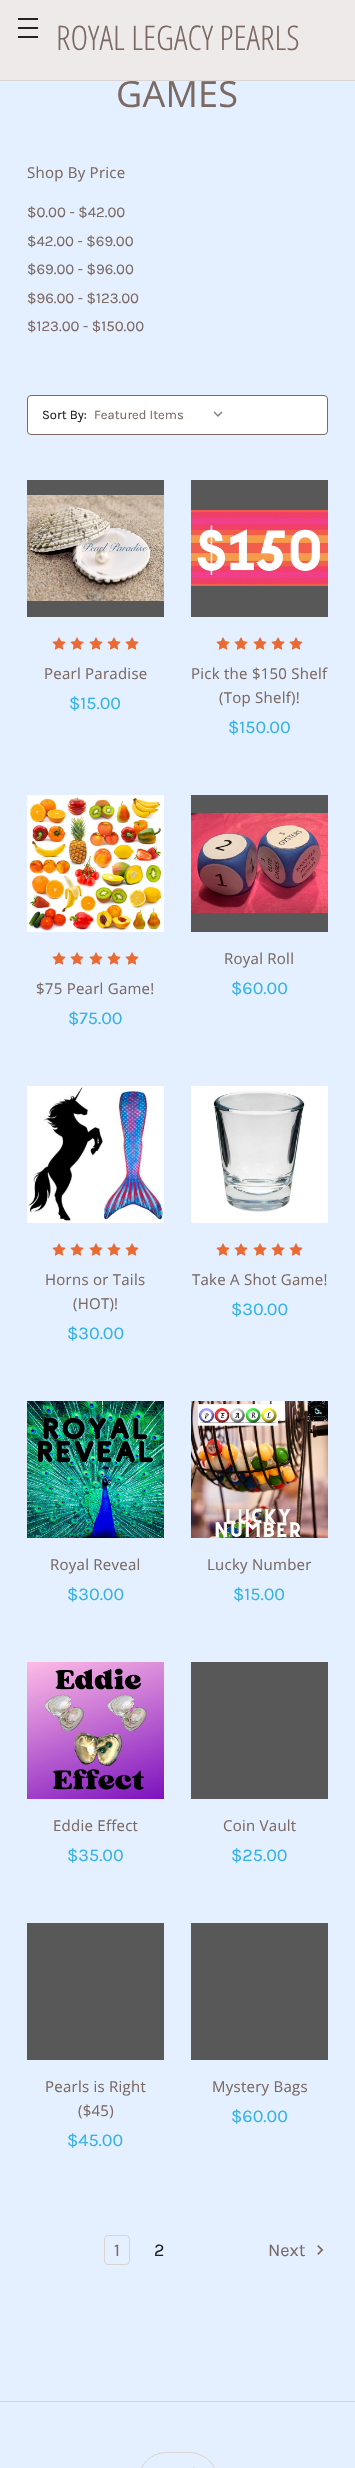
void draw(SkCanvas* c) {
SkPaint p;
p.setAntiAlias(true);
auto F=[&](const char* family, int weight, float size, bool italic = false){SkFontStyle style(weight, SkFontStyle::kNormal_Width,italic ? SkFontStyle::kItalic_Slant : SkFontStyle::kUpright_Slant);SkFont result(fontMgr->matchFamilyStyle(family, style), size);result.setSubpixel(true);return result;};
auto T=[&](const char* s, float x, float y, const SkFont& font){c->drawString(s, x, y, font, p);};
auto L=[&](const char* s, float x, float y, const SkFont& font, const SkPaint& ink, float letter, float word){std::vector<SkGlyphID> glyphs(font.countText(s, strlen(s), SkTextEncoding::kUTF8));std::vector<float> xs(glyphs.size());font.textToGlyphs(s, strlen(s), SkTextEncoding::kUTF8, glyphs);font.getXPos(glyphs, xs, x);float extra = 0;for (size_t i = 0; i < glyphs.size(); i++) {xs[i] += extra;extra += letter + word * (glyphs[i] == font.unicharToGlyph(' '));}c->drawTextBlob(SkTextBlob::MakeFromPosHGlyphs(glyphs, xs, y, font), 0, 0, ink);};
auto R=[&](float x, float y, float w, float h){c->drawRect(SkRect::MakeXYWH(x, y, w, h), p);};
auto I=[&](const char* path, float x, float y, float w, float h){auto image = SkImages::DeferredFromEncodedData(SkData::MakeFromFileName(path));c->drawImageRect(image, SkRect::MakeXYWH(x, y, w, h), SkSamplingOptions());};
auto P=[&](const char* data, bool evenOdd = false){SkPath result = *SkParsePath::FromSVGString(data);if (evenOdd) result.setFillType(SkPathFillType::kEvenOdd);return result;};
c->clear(0xffe4efff);
p.setColor(0xffeeeae9);
R(0,0,355,80);
auto f1 = F("Open Sans",400,36);
p.setColor(0xff7b6962);
L("GAMES",116,107,f1,p,.25,0);
p.setColor(0xffdad5d3);
R(0,80,355,1);
p.setColor(0xff222222);
R(18,27,20,2);
R(18,18,20,2);
R(18,36,20,2);
auto f2 = F("Open Sans Condensed",300,34);
p.setColor(0xff7b6962);
T("ROYAL LEGACY PEARLS",56,50,f2);
auto f3 = F("Open Sans",400,15);
L("Shop By Price",27,178,f3,p,.25,0);
auto f4 = F("Karla",400,15);
T("$0.00 - $42.00",27,217,f4);
T("$42.00 - $69.00",27,246,f4);
T("$69.00 - $96.00",27,274,f4);
T("$96.00 - $123.00",27,303,f4);
T("$123.00 - $150.00",27,331,f4);
p.setColor(0xffffffff);
c->drawRoundRect(SkRect::MakeXYWH(27.5,395.5,300,39),3.5,3.5,p);
p.setStroke(true);
p.setStrokeWidth(1);
p.setColor(0xff7b6962);
c->drawRoundRect(SkRect::MakeXYWH(27.5,395.5,300,39),3.5,3.5,p);
auto f5 = F("Karla",400,13);
p.setStroke(false);
p.setColor(0xff222222);
T("Sort By:",42,419,f5);
I("1.png",213,411,10,6);
p.setColor(0xff7b6962);
T("Featured Items",94,419,f5);
p.setColor(0xff585858);
R(27,480,137,137);
I("2.png",27,495,137,106);
I("3.png",52,637,14,13);
I("3.png",70,637,14,13);
I("3.png",89,637,14,13);
I("3.png",107,637,14,13);
I("3.png",125,637,14,13);
p.setColor(0xff7b6962);
L("Pearl Paradise",44,679,f3,p,.25,0);
auto f6 = F("Karla",400,18);
p.setColor(0xff33b2e9);
T("$15.00",69,709,f6);
p.setColor(0xff585858);
R(191,480,137,137);
I("4.png",191,510,137,76);
I("3.png",216,637,14,13);
I("3.png",234,637,14,13);
I("3.png",253,637,14,13);
I("3.png",271,637,14,13);
I("3.png",289,637,14,13);
p.setColor(0xff7b6962);
L("Pick the $150 Shelf",191,679,f3,p,.25,0);
L("(Top Shelf)!",219,703,f3,p,.25,0);
p.setColor(0xff33b2e9);
T("$150.00",228,733,f6);
p.setColor(0xff585858);
R(191,795,137,137);
I("5.png",191,813,137,100);
p.setColor(0xff7b6962);
L("Royal Roll",224,964,f3,p,.25,0);
p.setColor(0xff33b2e9);
T("$60.00",231,994,f6);
I("6.png",27,795,137,137);
I("3.png",52,952,14,13);
I("3.png",70,952,14,13);
I("3.png",89,952,14,13);
I("3.png",107,952,14,13);
I("3.png",125,952,14,13);
p.setColor(0xff7b6962);
L("$75 Pearl Game!",36,994,f3,p,.25,0);
p.setColor(0xff33b2e9);
T("$75.00",68,1024,f6);
I("7.png",27,1086,137,137);
I("3.png",52,1243,14,13);
I("3.png",70,1243,14,13);
I("3.png",89,1243,14,13);
I("3.png",107,1243,14,13);
I("3.png",125,1243,14,13);
p.setColor(0xff7b6962);
L("Horns or Tails",45,1285,f3,p,.25,0);
L("(HOT)!",73,1309,f3,p,.25,0);
p.setColor(0xff33b2e9);
T("$30.00",67,1339,f6);
I("8.png",191,1086,137,137);
I("3.png",216,1243,14,13);
I("3.png",234,1243,14,13);
I("3.png",253,1243,14,13);
I("3.png",271,1243,14,13);
I("3.png",289,1243,14,13);
p.setColor(0xff7b6962);
L("Take A Shot Game!",192,1285,f3,p,.25,0);
p.setColor(0xff33b2e9);
T("$30.00",231,1315,f6);
I("9.png",27,1401,137,137);
p.setColor(0xff7b6962);
L("Royal Reveal",50,1570,f3,p,.25,0);
p.setColor(0xff33b2e9);
T("$30.00",67,1600,f6);
I("10.png",191,1401,137,137);
p.setColor(0xff7b6962);
L("Lucky Number",207,1570,f3,p,.25,0);
p.setColor(0xff33b2e9);
T("$15.00",233,1600,f6);
I("11.png",27,1662,137,137);
p.setColor(0xff7b6962);
L("Eddie Effect",53,1831,f3,p,.25,0);
p.setColor(0xff33b2e9);
T("$35.00",67,1861,f6);
p.setColor(0xff585858);
R(191,1662,137,137);
p.setColor(0xff7b6962);
L("Coin Vault",223,1831,f3,p,.25,0);
p.setColor(0xff33b2e9);
T("$25.00",231,1861,f6);
p.setColor(0xff585858);
R(27,1923,137,137);
p.setColor(0xff7b6962);
L("Pearls is Right",45,2092,f3,p,.25,0);
L("($45)",78,2116,f3,p,.25,0);
p.setColor(0xff33b2e9);
T("$45.00",67,2146,f6);
p.setColor(0xff585858);
R(191,1923,137,137);
p.setColor(0xff7b6962);
L("Mystery Bags",212,2092,f3,p,.25,0);
p.setColor(0xff33b2e9);
T("$60.00",231,2122,f6);
p.setStroke(true);
p.setColor(0xffdad5d3);
c->drawRoundRect(SkRect::MakeXYWH(104.5,2235.5,25,29),3.5,3.5,p);
p.setStroke(false);
p.setColor(0xff7b6962);
T("1",114,2256,f6);
p.setColor(0xff222222);
T("2",154,2256,f6);
p.setColor(0xff7b6962);
T("Next",268,2256,f6);
I("12.png",317,2245,7,10);
p.setColor(0xffdad5d3);
R(0,2401,355,1);
p.setStroke(true);
c->drawRoundRect(SkRect::MakeXYWH(138.5,2452.5,79,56),39.5,39.5,p);
p.setStroke(false);
c->drawPath(P("M155 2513l39-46l5 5l-38 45z"),p);
}
